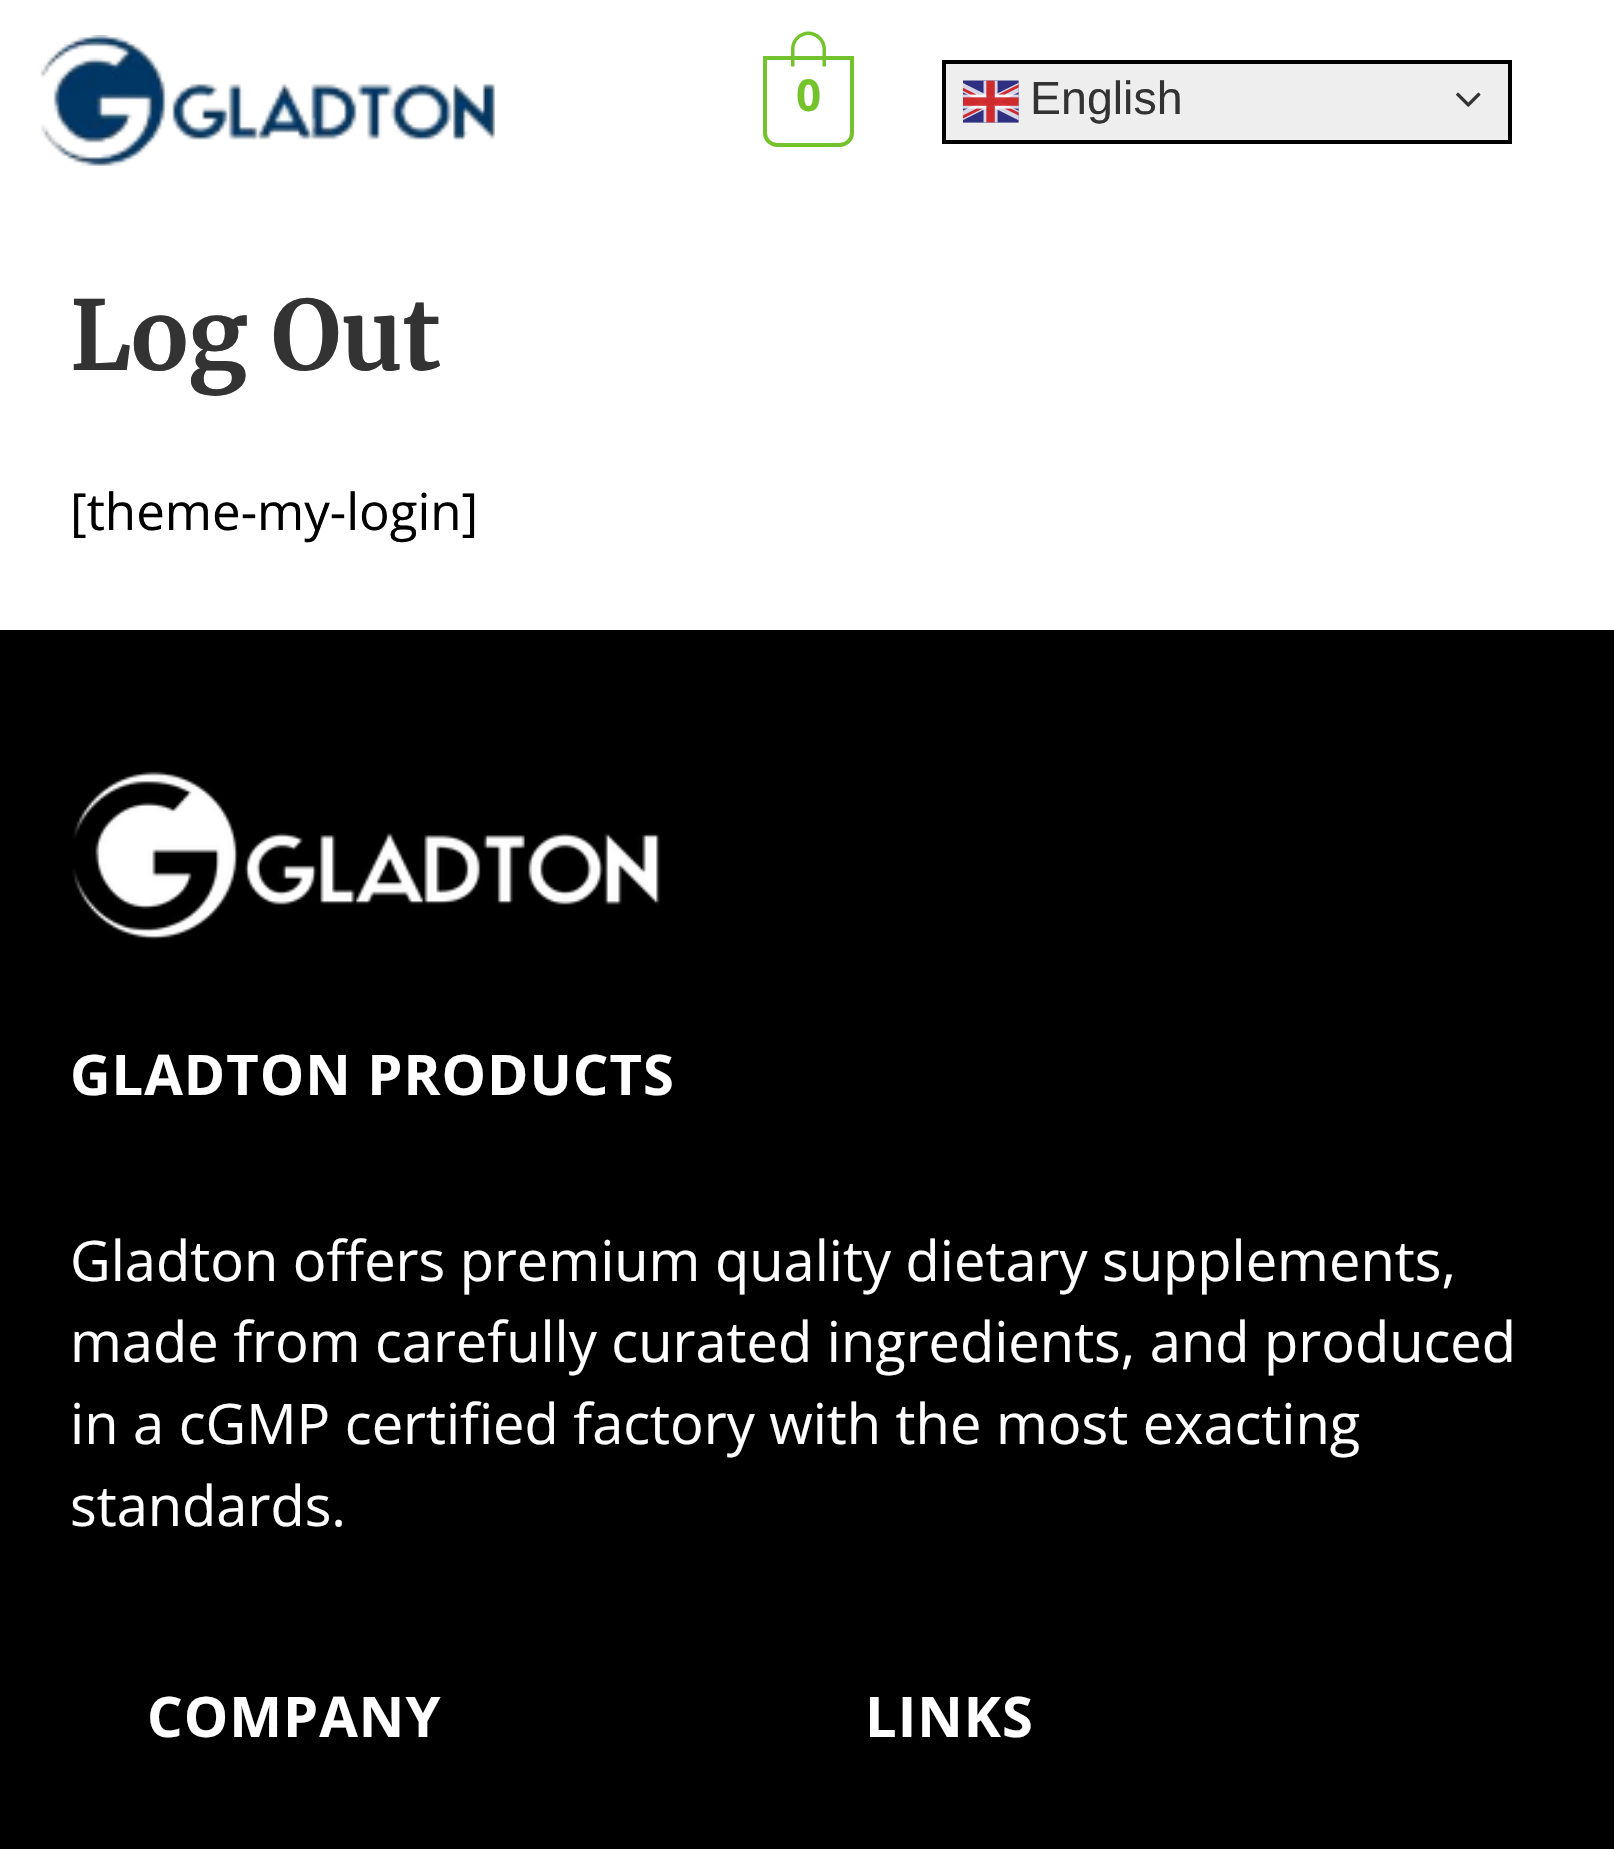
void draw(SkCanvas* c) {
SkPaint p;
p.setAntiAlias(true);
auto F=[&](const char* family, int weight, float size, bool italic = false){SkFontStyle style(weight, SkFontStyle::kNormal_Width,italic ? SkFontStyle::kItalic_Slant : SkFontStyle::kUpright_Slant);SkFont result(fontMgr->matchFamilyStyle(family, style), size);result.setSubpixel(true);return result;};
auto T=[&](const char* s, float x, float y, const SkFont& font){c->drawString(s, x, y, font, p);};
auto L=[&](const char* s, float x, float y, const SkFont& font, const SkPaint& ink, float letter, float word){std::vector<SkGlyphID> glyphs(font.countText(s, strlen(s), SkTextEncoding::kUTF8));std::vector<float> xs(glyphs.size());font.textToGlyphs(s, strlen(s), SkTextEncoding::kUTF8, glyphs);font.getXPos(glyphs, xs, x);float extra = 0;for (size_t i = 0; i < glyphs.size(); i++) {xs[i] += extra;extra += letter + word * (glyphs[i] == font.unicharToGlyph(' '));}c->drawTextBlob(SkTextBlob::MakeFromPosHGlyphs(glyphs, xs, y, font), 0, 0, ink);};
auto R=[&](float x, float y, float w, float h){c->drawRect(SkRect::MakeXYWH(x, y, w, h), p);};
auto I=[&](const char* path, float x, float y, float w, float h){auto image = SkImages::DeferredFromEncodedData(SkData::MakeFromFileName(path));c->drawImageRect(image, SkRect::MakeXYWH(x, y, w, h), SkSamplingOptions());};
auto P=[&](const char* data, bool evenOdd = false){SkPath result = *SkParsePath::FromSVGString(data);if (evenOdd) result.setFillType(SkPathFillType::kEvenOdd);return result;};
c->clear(0xffffffff);
I("1.png",40,35,455,131);
p.setStroke(true);
p.setStrokeWidth(4);
p.setColor(0xff75c32c);
c->drawPath(P("M765 58h87v75c0 6.5-5.5 12-12 12h-63c-6.5 0-12-5.5-12-12z"),p);
p.setStroke(false);
c->drawPath(P("M808.5 31.5c9.5 0 17.5 8 17.5 17.5v17.5h-35v-17.5c0-9.5 8-17.5 17.5-17.5zm0 3.5c7.5 0 14 6.5 14 14v17.5h-28v-17.5c0-7.5 6-14 14-14z",true),p);
auto f1 = F("Open Sans",700,44);
T("0",796,111,f1);
p.setColor(0xffeeeeee);
c->drawRect(SkRect::MakeXYWH(944,62,566,80),p);
p.setStroke(true);
p.setColor(0xff000000);
c->drawRect(SkRect::MakeXYWH(944,62,566,80),p);
I("2.png",963,80,56,43);
auto f2 = F("Liberation Sans",400,46.5);
p.setStroke(false);
p.setColor(0xff333333);
T("English",1030,114,f2);
I("3.png",1456,92,25,15);
auto f3 = F("Merriweather",300,96);
T("Log Out",70,370,f3);
auto f4 = F("Open Sans",400,51);
p.setColor(0xff000000);
T("[theme-my-login]",70,530,f4);
R(0,630,1614,1219);
I("4.png",72,771,588,169);
auto f5 = F("Open Sans",700,56);
p.setColor(0xffffffff);
L("GLADTON PRODUCTS",70,1095,f5,p,1,0);
auto f6 = F("Open Sans",400,56);
T("Gladton offers premium quality dietary supplements,",70,1281,f6);
T("made from carefully curated ingredients, and produced",70,1362,f6);
T("in a cGMP certified factory with the most exacting",70,1444,f6);
T("standards.",70,1526,f6);
L("COMPANY",147,1737,f5,p,1,0);
L("LINKS",865,1737,f5,p,1,0);
}
